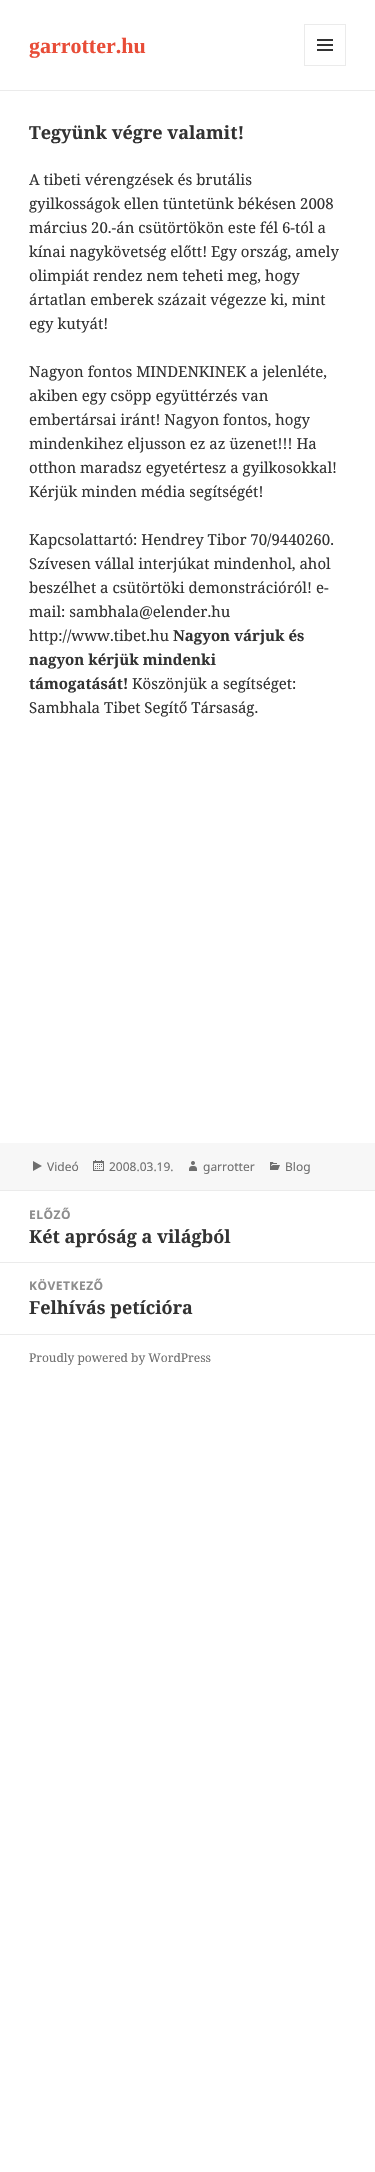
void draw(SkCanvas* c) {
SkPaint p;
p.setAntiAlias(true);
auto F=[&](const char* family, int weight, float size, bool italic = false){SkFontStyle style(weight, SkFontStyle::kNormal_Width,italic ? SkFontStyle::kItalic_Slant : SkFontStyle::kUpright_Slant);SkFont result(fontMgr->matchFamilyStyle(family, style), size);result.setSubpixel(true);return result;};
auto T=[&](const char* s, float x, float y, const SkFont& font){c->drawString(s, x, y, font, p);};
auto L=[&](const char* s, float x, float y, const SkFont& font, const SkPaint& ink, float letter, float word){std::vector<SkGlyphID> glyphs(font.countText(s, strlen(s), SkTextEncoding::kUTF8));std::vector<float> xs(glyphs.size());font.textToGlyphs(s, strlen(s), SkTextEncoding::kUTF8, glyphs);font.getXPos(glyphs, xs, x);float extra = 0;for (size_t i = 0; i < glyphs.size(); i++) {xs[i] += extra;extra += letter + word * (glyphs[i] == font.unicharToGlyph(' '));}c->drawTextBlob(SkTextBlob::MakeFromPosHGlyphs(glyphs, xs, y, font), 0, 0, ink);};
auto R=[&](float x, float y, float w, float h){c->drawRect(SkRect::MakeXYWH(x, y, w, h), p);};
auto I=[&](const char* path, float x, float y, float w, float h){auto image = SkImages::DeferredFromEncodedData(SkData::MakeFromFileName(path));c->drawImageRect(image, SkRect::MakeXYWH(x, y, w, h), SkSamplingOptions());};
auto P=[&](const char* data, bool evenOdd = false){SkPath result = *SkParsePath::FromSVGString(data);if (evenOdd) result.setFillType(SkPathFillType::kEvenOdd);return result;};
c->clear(0xffffffff);
p.setColor(0xffebebeb);
R(0,90,375,1);
auto f1 = F("Liberation Serif",700,22);
p.setColor(0xffe84d38);
T("garrotter.hu",29,53,f1);
p.setStroke(true);
p.setStrokeWidth(1);
p.setColor(0xffebebeb);
c->drawRect(SkRect::MakeXYWH(304.5,24.5,41,41),p);
I("1.png",317,39,16,12);
auto f2 = F("Noto Serif",700,18);
p.setStroke(false);
p.setColor(0xff333333);
T("Tegyünk végre valamit!",29,139,f2);
auto f3 = F("Noto Serif",400,15);
T("A tibeti vérengzések és brutális",29,185,f3);
T("gyilkosságok ellen tüntetünk békésen 2008",29,209,f3);
T("március 20.-án csütörtökön este fél 6-tól a",29,233,f3);
T("kínai nagykövetség előtt! Egy ország, amely",29,257,f3);
T("olimpiát rendez nem teheti meg, hogy",29,281,f3);
T("ártatlan emberek százait végezze ki, mint",29,305,f3);
T("egy kutyát!",29,329,f3);
T("Nagyon fontos MINDENKINEK a jelenléte,",29,377,f3);
T("akiben egy csöpp együttérzés van",29,401,f3);
T("embertársai iránt! Nagyon fontos, hogy",29,425,f3);
T("mindenkihez eljusson ez az üzenet!!! Ha",29,449,f3);
T("otthon maradsz egyetértesz a gyilkosokkal!",29,473,f3);
T("Kérjük minden média segítségét!",29,497,f3);
T("Kapcsolattartó: Hendrey Tibor 70/9440260.",29,545,f3);
T("Szívesen vállal interjúkat mindenhol, ahol",29,569,f3);
T("beszélhet a csütörtöki demonstrációról! e-",29,593,f3);
T("mail: sambhala@elender.hu",29,617,f3);
T("http://www.tibet.hu",29,641,f3);
auto f4 = F("Noto Serif",700,15);
T("Nagyon várjuk és",173,641,f4);
T("nagyon kérjük mindenki",29,665,f4);
T("támogatását!",29,689,f4);
T("Köszönjük a segítséget:",132,689,f3);
T("Sambhala Tibet Segítő Társaság.",29,713,f3);
p.setColor(0xfff7f7f7);
R(0,1143,375,47);
p.setColor(0xff6e6e6e);
c->drawPath(P("M33 1161l9 5l-9 5z"),p);
auto f5 = F("Noto Sans",400,12);
p.setColor(0xff707070);
T("Videó",47,1171,f5);
I("2.png",93,1160,11,11);
T("2008.03.19.",109,1171,f5);
I("3.png",189,1161,8,10);
T("garrotter",203,1171,f5);
I("4.png",270,1162,10,8);
T("Blog",285,1171,f5);
p.setColor(0xffebebeb);
R(0,1190,375,1);
auto f6 = F("Noto Sans",700,12);
p.setColor(0xff8d8d8d);
L("ELŐZŐ",29,1219,f6,p,.5,0);
p.setColor(0xff333333);
T("Két apróság a világból",29,1243,f2);
p.setColor(0xffebebeb);
R(0,1262,375,1);
p.setColor(0xff8d8d8d);
L("KÖVETKEZŐ",29,1290,f6,p,.5,0);
p.setColor(0xff333333);
T("Felhívás petícióra",29,1314,f2);
p.setColor(0xffebebeb);
R(0,1334,375,1);
auto f7 = F("Noto Serif",400,12);
p.setColor(0xff707070);
T("Proudly powered by WordPress",29,1362,f7);
}
